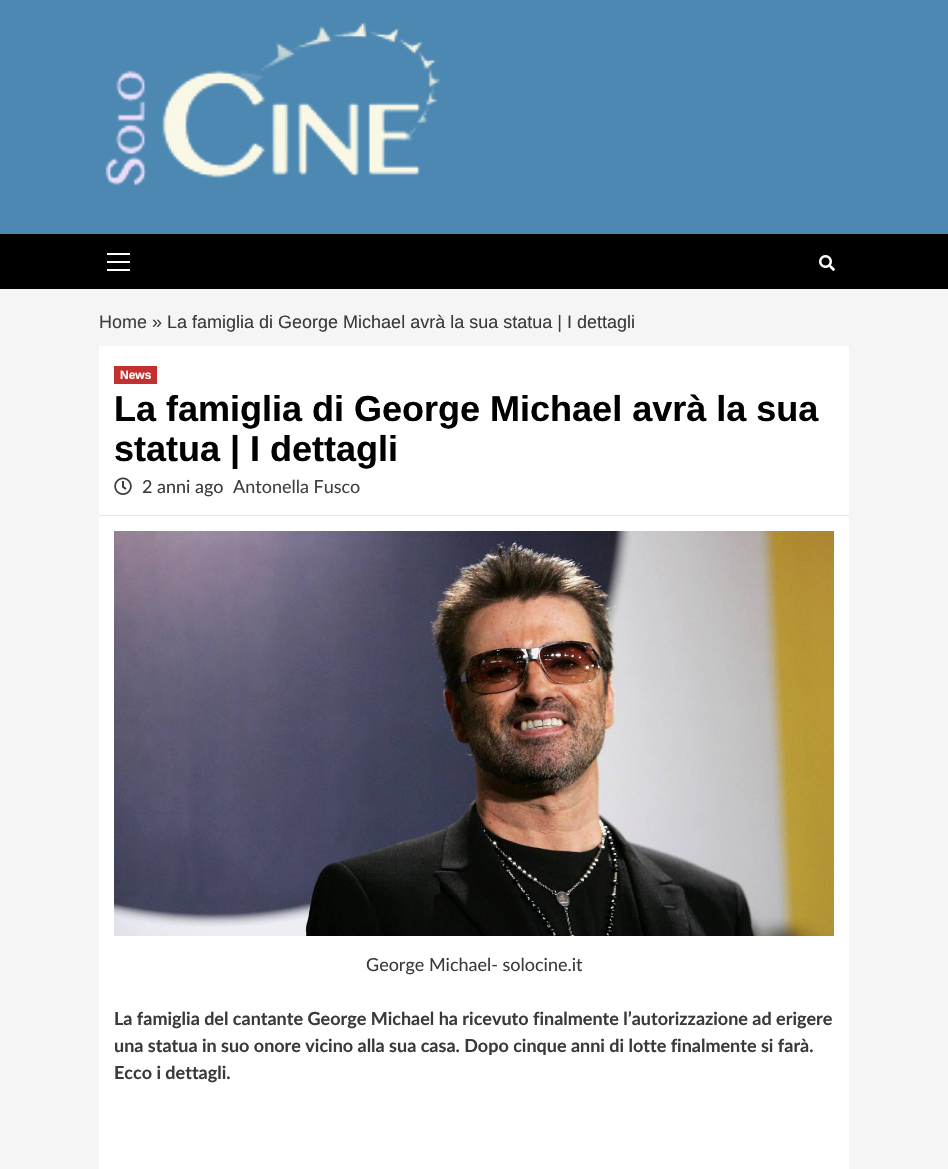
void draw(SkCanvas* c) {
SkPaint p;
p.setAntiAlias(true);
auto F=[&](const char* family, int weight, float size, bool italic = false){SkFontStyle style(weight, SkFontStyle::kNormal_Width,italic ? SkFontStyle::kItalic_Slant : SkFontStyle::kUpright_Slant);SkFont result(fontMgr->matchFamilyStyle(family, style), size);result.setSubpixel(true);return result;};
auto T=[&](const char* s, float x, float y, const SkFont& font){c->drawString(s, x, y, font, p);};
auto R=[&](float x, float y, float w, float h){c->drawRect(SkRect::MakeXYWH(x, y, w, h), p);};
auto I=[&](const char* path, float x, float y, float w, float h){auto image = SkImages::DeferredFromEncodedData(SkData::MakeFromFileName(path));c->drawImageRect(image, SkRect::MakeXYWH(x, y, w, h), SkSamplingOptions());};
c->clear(0xfff5f5f5);
p.setColor(0xff4c88b2);
R(0,0,948,234);
I("1.png",105,22,338,164);
p.setColor(0xff000000);
R(0,234,948,55);
p.setColor(0xffffffff);
R(107,261,23,2);
R(107,253,23,2);
R(107,269,23,2);
I("2.png",819,255,16,16);
auto f1 = F("Liberation Sans",400,18);
p.setColor(0xff404040);
T("Home",99,328,f1);
p.setColor(0xff3a3a3a);
T("» La famiglia di George Michael avrà la sua statua | I dettagli",152,328,f1);
p.setColor(0xffffffff);
R(99,346,750,823);
p.setColor(0xffe6e6e6);
R(99,515,750,1);
p.setColor(0xffc23030);
R(114,366,43,18);
auto f2 = F("Liberation Sans",700,12);
p.setColor(0xffffffff);
T("News",120,379,f2);
auto f3 = F("Liberation Sans",700,36);
p.setColor(0xff000000);
T("La famiglia di George Michael avrà la sua",114,421,f3);
T("statua | I dettagli",114,461,f3);
I("3.png",114,477,18,18);
auto f4 = F("Lato",400,18);
p.setColor(0xff3a3a3a);
T("2 anni ago",142,493,f4);
p.setColor(0xff404040);
T("Antonella Fusco",233,493,f4);
I("4.png",114,531,720,405);
p.setColor(0xff3a3a3a);
T("George Michael- solocine.it",366,971,f4);
auto f5 = F("Lato",700,18);
T("La famiglia del cantante George Michael ha ricevuto finalmente l’autorizzazione ad erigere",114,1025,f5);
T("una statua in suo onore vicino alla sua casa. Dopo cinque anni di lotte finalmente si farà.",114,1052,f5);
T("Ecco i dettagli.",114,1079,f5);
}
